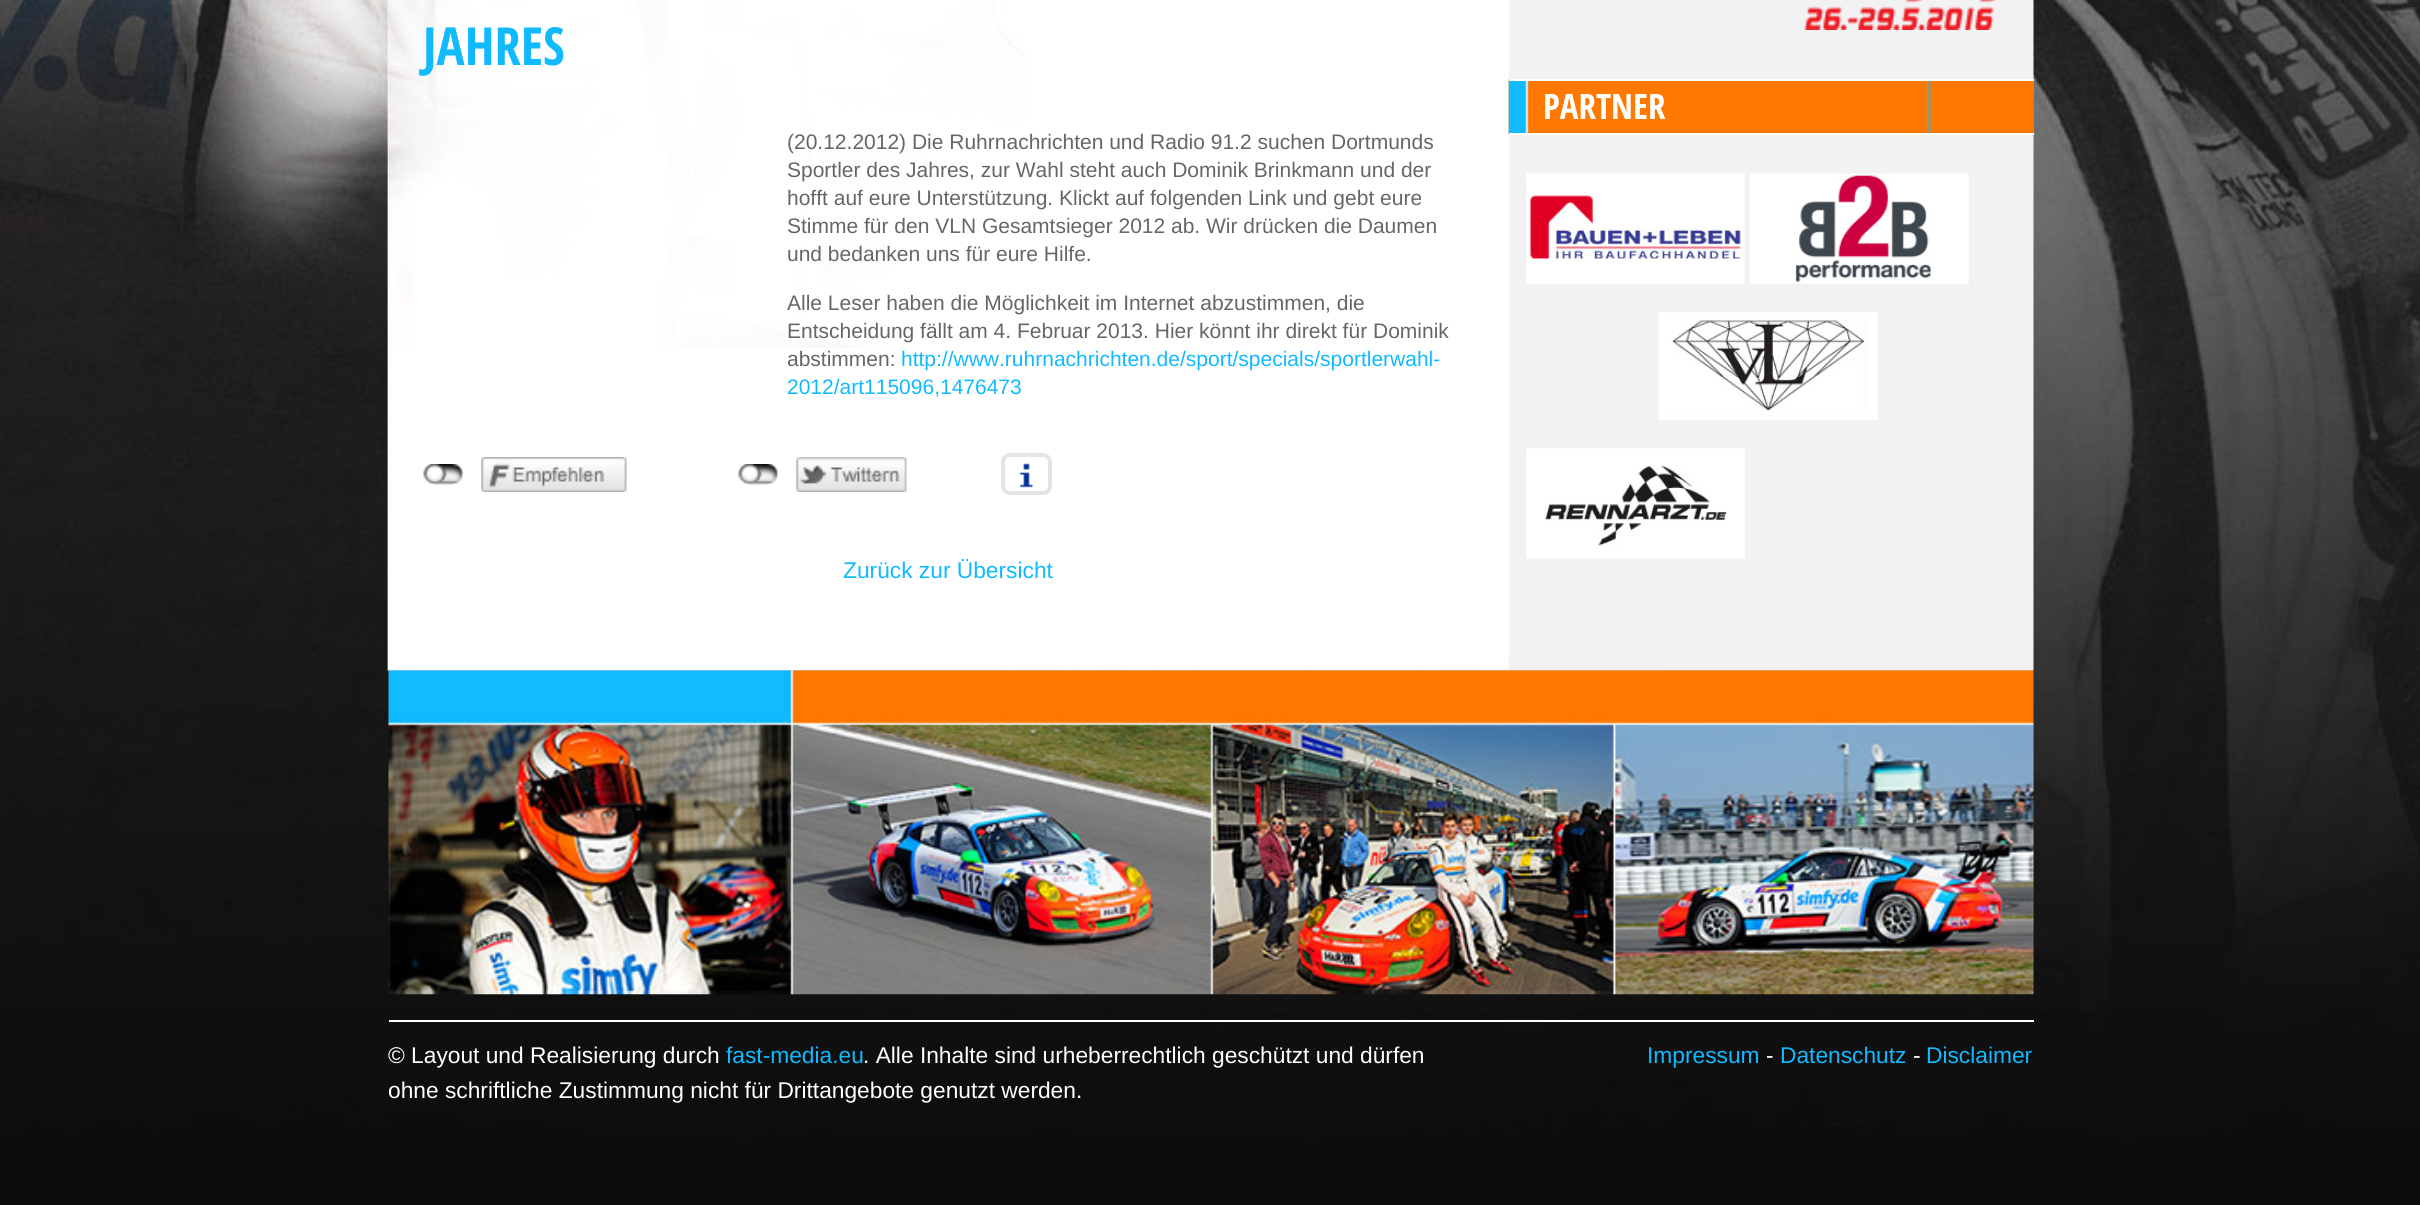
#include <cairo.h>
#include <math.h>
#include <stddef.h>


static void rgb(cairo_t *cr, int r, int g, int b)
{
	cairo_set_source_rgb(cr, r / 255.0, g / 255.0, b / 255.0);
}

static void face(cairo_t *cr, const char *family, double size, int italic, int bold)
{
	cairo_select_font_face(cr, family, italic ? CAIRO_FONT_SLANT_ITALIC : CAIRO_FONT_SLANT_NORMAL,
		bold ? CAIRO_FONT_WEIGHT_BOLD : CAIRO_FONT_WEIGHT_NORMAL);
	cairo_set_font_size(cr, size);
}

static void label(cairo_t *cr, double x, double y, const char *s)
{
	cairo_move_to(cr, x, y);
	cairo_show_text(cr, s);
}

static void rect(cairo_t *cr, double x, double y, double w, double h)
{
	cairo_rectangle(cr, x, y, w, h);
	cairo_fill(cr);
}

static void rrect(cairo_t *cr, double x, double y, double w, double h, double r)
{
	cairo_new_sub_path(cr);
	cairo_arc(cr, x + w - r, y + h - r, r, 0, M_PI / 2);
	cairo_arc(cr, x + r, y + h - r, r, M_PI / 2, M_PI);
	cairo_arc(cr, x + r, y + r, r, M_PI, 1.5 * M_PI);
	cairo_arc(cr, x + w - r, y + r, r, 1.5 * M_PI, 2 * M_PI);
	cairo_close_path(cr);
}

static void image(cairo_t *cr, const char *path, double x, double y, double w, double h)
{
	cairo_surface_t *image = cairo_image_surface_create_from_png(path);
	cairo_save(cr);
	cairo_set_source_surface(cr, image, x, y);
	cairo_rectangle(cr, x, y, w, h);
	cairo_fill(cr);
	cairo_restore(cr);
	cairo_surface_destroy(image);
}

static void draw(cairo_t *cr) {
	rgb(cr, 255, 255, 255);
	cairo_paint(cr);
	image(cr, "image0.png", 0, 0, 2420, 1205);
	image(cr, "image1.png", 388, 0, 1646, 671);
	rgb(cr, 255, 255, 255);
	rect(cr, 1508, 0, 1, 658);
	image(cr, "image2.png", 388, 0, 638, 348);
	face(cr, "Open Sans Condensed", 52.5, 0, 1);
	rgb(cr, 17, 186, 255);
	label(cr, 423, 65, "JAHRES");
	face(cr, "Liberation Sans", 21, 0, 0);
	rgb(cr, 102, 102, 102);
	label(cr, 787, 149, "(20.12.2012) Die Ruhrnachrichten und Radio 91.2 suchen Dortmunds");
	label(cr, 787, 177, "Sportler des Jahres, zur Wahl steht auch Dominik Brinkmann und der");
	label(cr, 787, 205, "hofft auf eure Unterstützung. Klickt auf folgenden Link und gebt eure");
	label(cr, 787, 233, "Stimme für den VLN Gesamtsieger 2012 ab. Wir drücken die Daumen");
	label(cr, 787, 261, "und bedanken uns für eure Hilfe.");
	label(cr, 787, 310, "Alle Leser haben die Möglichkeit im Internet abzustimmen, die");
	label(cr, 787, 338, "Entscheidung fällt am 4. Februar 2013. Hier könnt ihr direkt für Dominik");
	label(cr, 787, 366, "abstimmen:");
	rgb(cr, 17, 186, 255);
	label(cr, 901, 366, "http://www.ruhrnachrichten.de/sport/specials/sportlerwahl-");
	label(cr, 787, 394, "2012/art115096,1476473");
	image(cr, "image3.png", 423, 464, 41, 21);
	image(cr, "image4.png", 481, 457, 146, 35);
	image(cr, "image5.png", 738, 464, 41, 21);
	image(cr, "image6.png", 796, 457, 111, 35);
	image(cr, "image7.png", 1019, 463, 14, 25);
	rrect(cr, 1003, 455, 47, 38, 7);
	rgb(cr, 231, 227, 227);
	cairo_set_line_width(cr, 4);
	cairo_stroke(cr);
	face(cr, "Liberation Sans", 22.75, 0, 0);
	rgb(cr, 17, 186, 255);
	label(cr, 843, 578, "Zurück zur Übersicht");
	image(cr, "image8.png", 1804, 0, 193, 30);
	rgb(cr, 254, 120, 0);
	rect(cr, 1930, 81, 104, 52);
	image(cr, "image9.png", 1508, 79, 423, 56);
	rgb(cr, 255, 255, 255);
	rect(cr, 1509, 79, 525, 2);
	rect(cr, 1509, 133, 525, 2);
	face(cr, "Open Sans Condensed", 35, 0, 1);
	label(cr, 1543, 119, "PARTNER");
	image(cr, "image10.png", 1526, 173, 219, 111);
	image(cr, "image11.png", 1750, 173, 219, 111);
	image(cr, "image12.png", 1659, 312, 219, 108);
	image(cr, "image13.png", 1526, 448, 219, 111);
	image(cr, "image14.png", 388, 670, 1646, 325);
	rect(cr, 389, 1020, 1645, 2);
	face(cr, "Liberation Sans", 22.75, 0, 0);
	label(cr, 388, 1063, "© Layout und Realisierung durch");
	rgb(cr, 17, 186, 255);
	label(cr, 726, 1063, "fast-media.eu");
	rgb(cr, 255, 255, 255);
	label(cr, 863, 1063, ". Alle Inhalte sind urheberrechtlich geschützt und dürfen");
	label(cr, 388, 1098, "ohne schriftliche Zustimmung nicht für Drittangebote genutzt werden.");
	rgb(cr, 17, 186, 255);
	label(cr, 1647, 1063, "Impressum");
	rgb(cr, 255, 255, 255);
	label(cr, 1766, 1063, "-");
	rgb(cr, 17, 186, 255);
	label(cr, 1780, 1063, "Datenschutz");
	rgb(cr, 255, 255, 255);
	label(cr, 1913, 1063, "-");
	rgb(cr, 17, 186, 255);
	label(cr, 1926, 1063, "Disclaimer");
}

int main(void) {
	cairo_surface_t *surface = cairo_image_surface_create(CAIRO_FORMAT_RGB24, 2420, 1205);
	cairo_t *cr = cairo_create(surface);
	cairo_font_options_t *options = cairo_font_options_create();
	cairo_font_options_set_hint_metrics(options, CAIRO_HINT_METRICS_OFF);
	cairo_font_options_set_hint_style(options, CAIRO_HINT_STYLE_NONE);
	cairo_set_font_options(cr, options);
	cairo_set_miter_limit(cr, 4);
	draw(cr);
	cairo_surface_write_to_png(surface, "render.png");
	cairo_font_options_destroy(options);
	cairo_destroy(cr);
	cairo_surface_destroy(surface);
	return 0;
}
